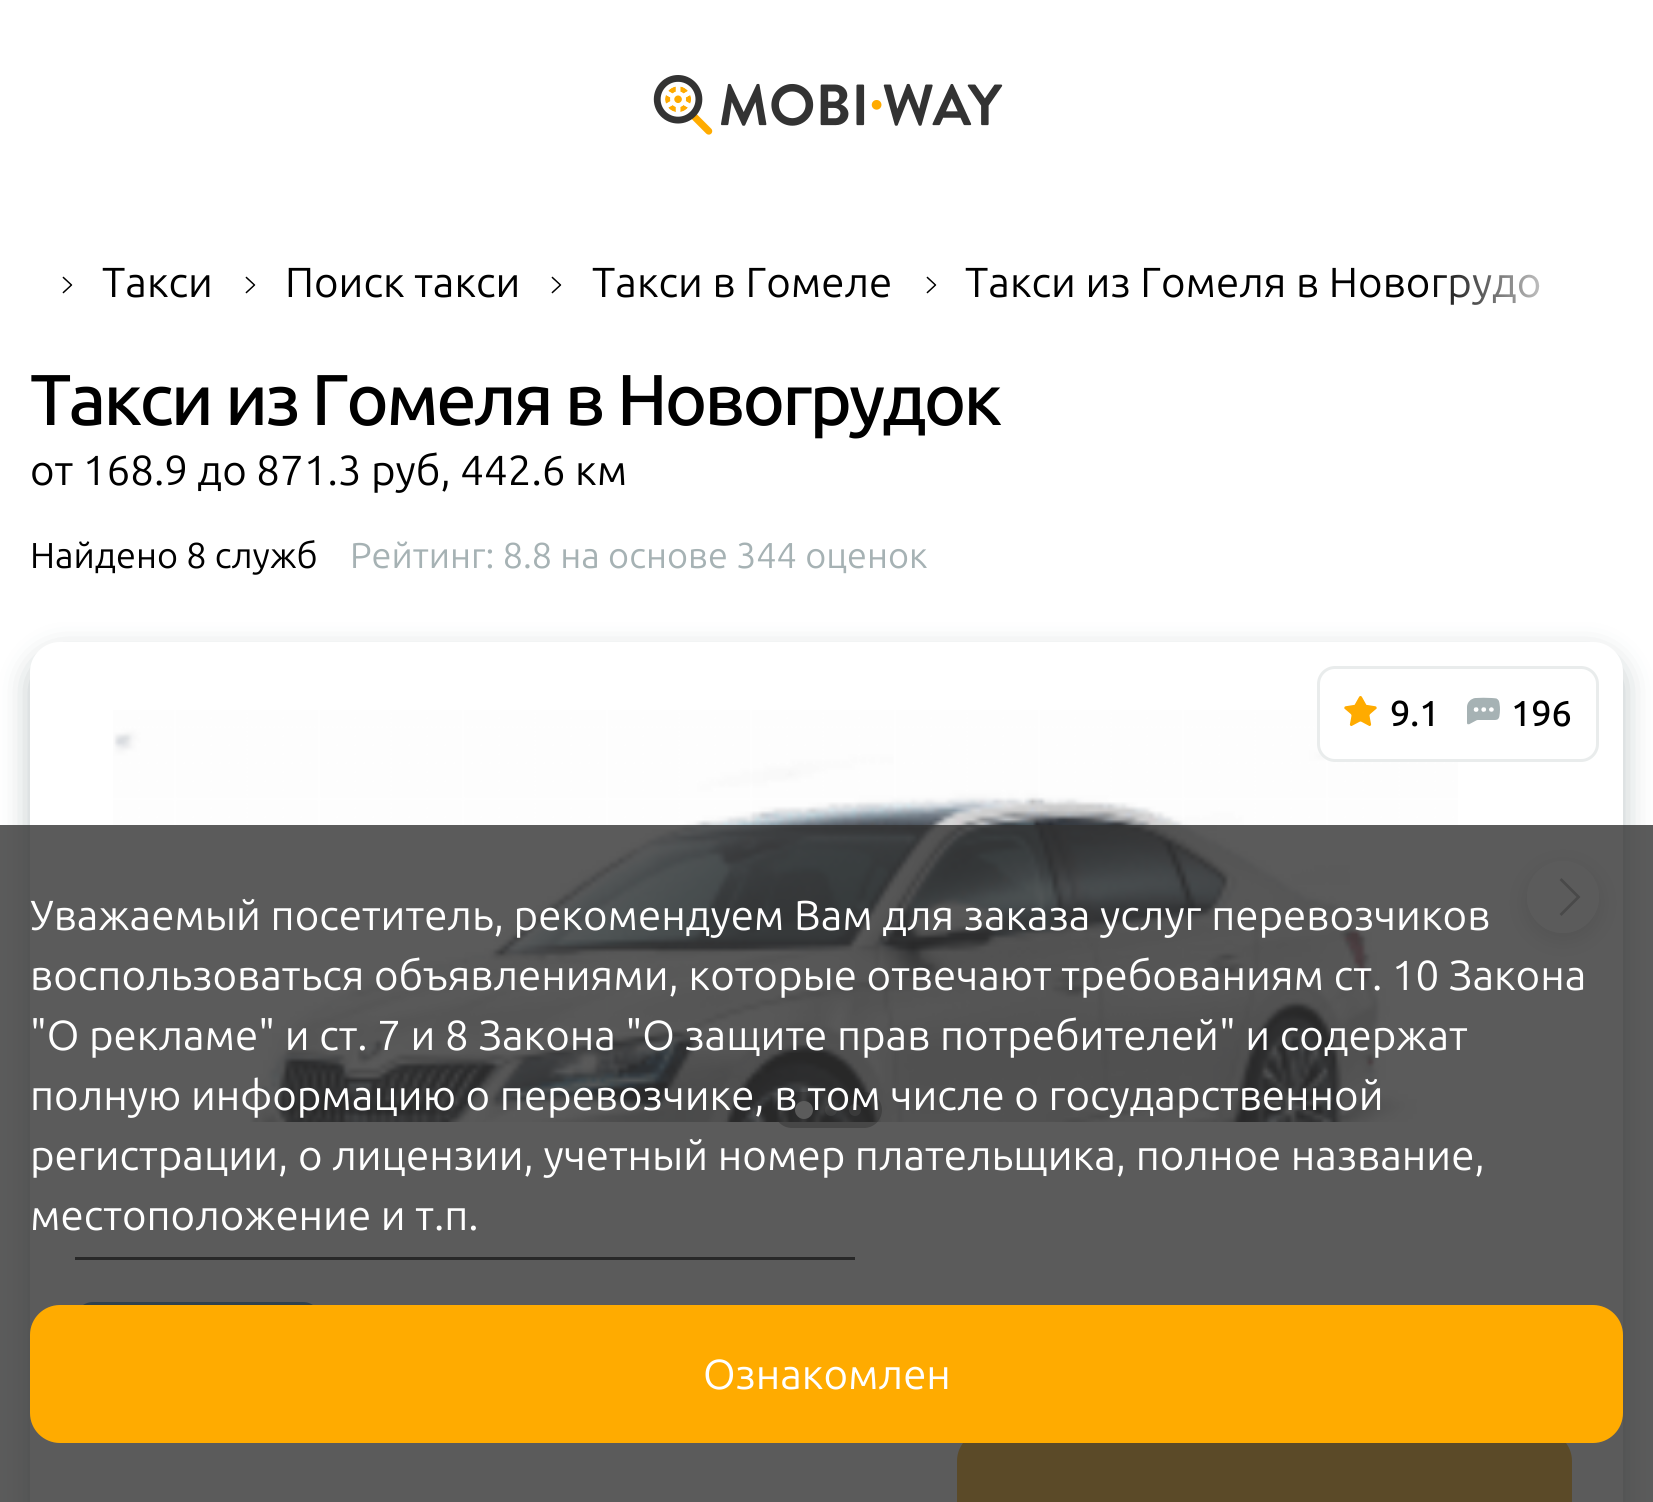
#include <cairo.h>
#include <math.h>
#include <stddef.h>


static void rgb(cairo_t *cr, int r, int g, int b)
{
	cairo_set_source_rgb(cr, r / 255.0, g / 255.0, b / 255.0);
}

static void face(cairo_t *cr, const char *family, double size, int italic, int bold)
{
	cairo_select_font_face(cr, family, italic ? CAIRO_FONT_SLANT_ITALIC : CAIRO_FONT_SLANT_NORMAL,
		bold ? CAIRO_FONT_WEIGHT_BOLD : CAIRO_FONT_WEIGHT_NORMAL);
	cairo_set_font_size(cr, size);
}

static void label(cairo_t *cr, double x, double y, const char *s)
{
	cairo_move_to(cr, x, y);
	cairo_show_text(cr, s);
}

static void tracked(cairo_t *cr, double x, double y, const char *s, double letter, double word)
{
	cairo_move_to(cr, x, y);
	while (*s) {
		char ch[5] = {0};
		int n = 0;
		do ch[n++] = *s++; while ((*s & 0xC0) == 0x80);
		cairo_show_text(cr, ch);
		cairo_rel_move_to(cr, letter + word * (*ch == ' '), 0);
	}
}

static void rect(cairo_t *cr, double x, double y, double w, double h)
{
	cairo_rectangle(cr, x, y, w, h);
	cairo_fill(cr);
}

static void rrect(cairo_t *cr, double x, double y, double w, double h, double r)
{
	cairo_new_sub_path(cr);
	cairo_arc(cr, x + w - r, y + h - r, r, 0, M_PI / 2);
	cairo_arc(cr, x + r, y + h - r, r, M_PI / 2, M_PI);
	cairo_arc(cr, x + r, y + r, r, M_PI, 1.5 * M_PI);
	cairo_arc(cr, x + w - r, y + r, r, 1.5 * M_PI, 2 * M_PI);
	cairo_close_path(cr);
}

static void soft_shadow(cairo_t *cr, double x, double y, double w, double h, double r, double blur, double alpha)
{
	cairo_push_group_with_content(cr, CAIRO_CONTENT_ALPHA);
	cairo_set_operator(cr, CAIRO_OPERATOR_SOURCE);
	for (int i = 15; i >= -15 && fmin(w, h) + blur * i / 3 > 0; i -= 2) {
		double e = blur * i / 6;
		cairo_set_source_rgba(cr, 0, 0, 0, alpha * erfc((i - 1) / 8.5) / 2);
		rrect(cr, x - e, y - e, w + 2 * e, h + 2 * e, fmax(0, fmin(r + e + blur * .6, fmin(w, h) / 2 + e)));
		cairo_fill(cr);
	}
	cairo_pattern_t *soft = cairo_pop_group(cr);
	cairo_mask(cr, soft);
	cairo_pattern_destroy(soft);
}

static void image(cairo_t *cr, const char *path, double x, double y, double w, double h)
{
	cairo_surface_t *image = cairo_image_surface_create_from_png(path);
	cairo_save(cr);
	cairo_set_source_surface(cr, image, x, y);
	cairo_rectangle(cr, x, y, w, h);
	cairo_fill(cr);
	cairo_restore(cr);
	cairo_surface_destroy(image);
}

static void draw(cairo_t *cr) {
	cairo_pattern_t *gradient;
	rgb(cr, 255, 255, 255);
	cairo_paint(cr);
	image(cr, "image0.png", 653, 75, 350, 60);
	image(cr, "image1.png", 62, 276, 11, 18);
	face(cr, "Ubuntu", 42, 0, 0);
	rgb(cr, 0, 0, 0);
	label(cr, 102, 297, "Такси");
	image(cr, "image2.png", 245, 276, 11, 18);
	label(cr, 285, 297, "Поиск такси");
	image(cr, "image1.png", 551, 276, 11, 18);
	label(cr, 592, 297, "Такси в Гомеле");
	image(cr, "image1.png", 926, 276, 11, 18);
	label(cr, 965, 297, "Такси из Гомеля в Новогрудо");
	gradient = cairo_pattern_create_linear(1578, 290, 1428, 290);
	cairo_pattern_add_color_stop_rgba(gradient, 0, 1, 1, 1, 1);
	cairo_pattern_add_color_stop_rgba(gradient, 1, 1, 1, 1, 0);
	cairo_set_source(cr, gradient);
	cairo_pattern_destroy(gradient);
	rect(cr, 1433, 274, 106, 31);
	face(cr, "Ubuntu Medium", 72, 0, 0);
	rgb(cr, 0, 0, 0);
	tracked(cr, 30, 425, "Такси из Гомеля в Новогрудок", -2.9, 0);
	face(cr, "Ubuntu", 42, 0, 0);
	label(cr, 30, 485, "от 168.9 до 871.3 руб, 442.6 км");
	face(cr, "Ubuntu", 36, 0, 0);
	label(cr, 30, 568, "Найдено 8 служб");
	rgb(cr, 166, 178, 180);
	label(cr, 350, 568, "Рейтинг: 8.8 на основе 344 оценок");
	rgb(cr, 33, 62, 68);
	soft_shadow(cr, 30, 654, 1593, 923, 30, 15, 0.3);
	rgb(cr, 255, 255, 255);
	rrect(cr, 30, 642, 1593, 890, 30);
	cairo_fill(cr);
	image(cr, "image5.png", 113, 710, 1345, 412);
	rrect(cr, 1318.5, 667.5, 279, 93, 16.5);
	cairo_fill_preserve(cr);
	rgb(cr, 233, 236, 236);
	cairo_set_line_width(cr, 3);
	cairo_stroke(cr);
	image(cr, "image3.png", 1344, 696, 33, 30);
	face(cr, "Ubuntu Medium", 36, 0, 0);
	rgb(cr, 0, 0, 0);
	label(cr, 1390, 726, "9.1");
	image(cr, "image4.png", 1467, 697, 33, 28);
	label(cr, 1511, 726, "196");
	cairo_save(cr);
	cairo_set_fill_rule(cr, CAIRO_FILL_RULE_EVEN_ODD);
	cairo_new_path(cr);
	cairo_move_to(cr, 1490, 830);
	cairo_line_to(cr, 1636, 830);
	cairo_line_to(cr, 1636, 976);
	cairo_line_to(cr, 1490, 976);
	cairo_close_path(cr);
	cairo_move_to(cr, 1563, 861);
	cairo_curve_to(cr, 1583, 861, 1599, 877, 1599, 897);
	cairo_curve_to(cr, 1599, 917, 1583, 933, 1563, 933);
	cairo_curve_to(cr, 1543, 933, 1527, 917, 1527, 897);
	cairo_curve_to(cr, 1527, 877, 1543, 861, 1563, 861);
	cairo_close_path(cr);
	cairo_clip(cr);
	rgb(cr, 0, 0, 0);
	soft_shadow(cr, 1527, 867, 72, 72, 36, 12, 0.15);
	cairo_restore(cr);
	cairo_set_source_rgba(cr, 1, 1, 1, 0.6);
	cairo_arc(cr, 1563, 897, 36, 0, 2 * M_PI);
	cairo_fill(cr);
	rgb(cr, 166, 166, 166);
	cairo_new_path(cr);
	cairo_move_to(cr, 1561.5, 878);
	cairo_line_to(cr, 1580.5, 897);
	cairo_line_to(cr, 1576.5, 897);
	cairo_line_to(cr, 1559.5, 880);
	cairo_close_path(cr);
	cairo_move_to(cr, 1580.5, 897);
	cairo_line_to(cr, 1561.5, 916);
	cairo_line_to(cr, 1559.5, 914);
	cairo_line_to(cr, 1576.5, 897);
	cairo_close_path(cr);
	cairo_fill(cr);
	cairo_set_source_rgba(cr, 0, 0, 0, 0.4);
	rrect(cr, 774, 1092, 108, 36, 18);
	cairo_fill(cr);
	rgb(cr, 255, 255, 255);
	cairo_arc(cr, 804, 1110, 9, 0, 2 * M_PI);
	cairo_fill(cr);
	cairo_set_source_rgba(cr, 1, 1, 1, 0.3);
	cairo_arc(cr, 831, 1110, 6, 0, 2 * M_PI);
	cairo_fill(cr);
	cairo_arc(cr, 855, 1110, 6, 0, 2 * M_PI);
	cairo_fill(cr);
	rgb(cr, 0, 0, 0);
	rect(cr, 75, 1257, 780, 3);
	rgb(cr, 42, 125, 187);
	rrect(cr, 75, 1302, 246, 72, 18);
	cairo_fill(cr);
	rgb(cr, 255, 171, 0);
	rrect(cr, 958.5, 1432.5, 612, 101, 28.5);
	cairo_fill_preserve(cr);
	cairo_stroke(cr);
	cairo_set_source_rgba(cr, 0.2, 0.2, 0.2, 0.8);
	rect(cr, 0, 825, 1653, 677);
	face(cr, "Ubuntu", 42, 0, 0);
	rgb(cr, 255, 255, 255);
	label(cr, 30, 930, "Уважаемый посетитель, рекомендуем Вам для заказа услуг перевозчиков");
	label(cr, 30, 990, "воспользоваться объявлениями, которые отвечают требованиям ст. 10 Закона");
	label(cr, 30, 1050, "\"О рекламе\" и ст. 7 и 8 Закона \"О защите прав потребителей\" и содержат");
	label(cr, 30, 1110, "полную информацию о перевозчике, в том числе о государственной");
	label(cr, 30, 1170, "регистрации, о лицензии, учетный номер плательщика, полное название,");
	label(cr, 30, 1230, "местоположение и т.п.");
	rgb(cr, 255, 171, 0);
	rrect(cr, 31.5, 1306.5, 1590, 135, 28.5);
	cairo_fill_preserve(cr);
	cairo_stroke(cr);
	rgb(cr, 255, 255, 255);
	label(cr, 703, 1389, "Ознакомлен");
}

int main(void) {
	cairo_surface_t *surface = cairo_image_surface_create(CAIRO_FORMAT_RGB24, 1653, 1502);
	cairo_t *cr = cairo_create(surface);
	cairo_font_options_t *options = cairo_font_options_create();
	cairo_font_options_set_hint_metrics(options, CAIRO_HINT_METRICS_OFF);
	cairo_font_options_set_hint_style(options, CAIRO_HINT_STYLE_NONE);
	cairo_set_font_options(cr, options);
	cairo_set_miter_limit(cr, 4);
	draw(cr);
	cairo_surface_write_to_png(surface, "render.png");
	cairo_font_options_destroy(options);
	cairo_destroy(cr);
	cairo_surface_destroy(surface);
	return 0;
}
